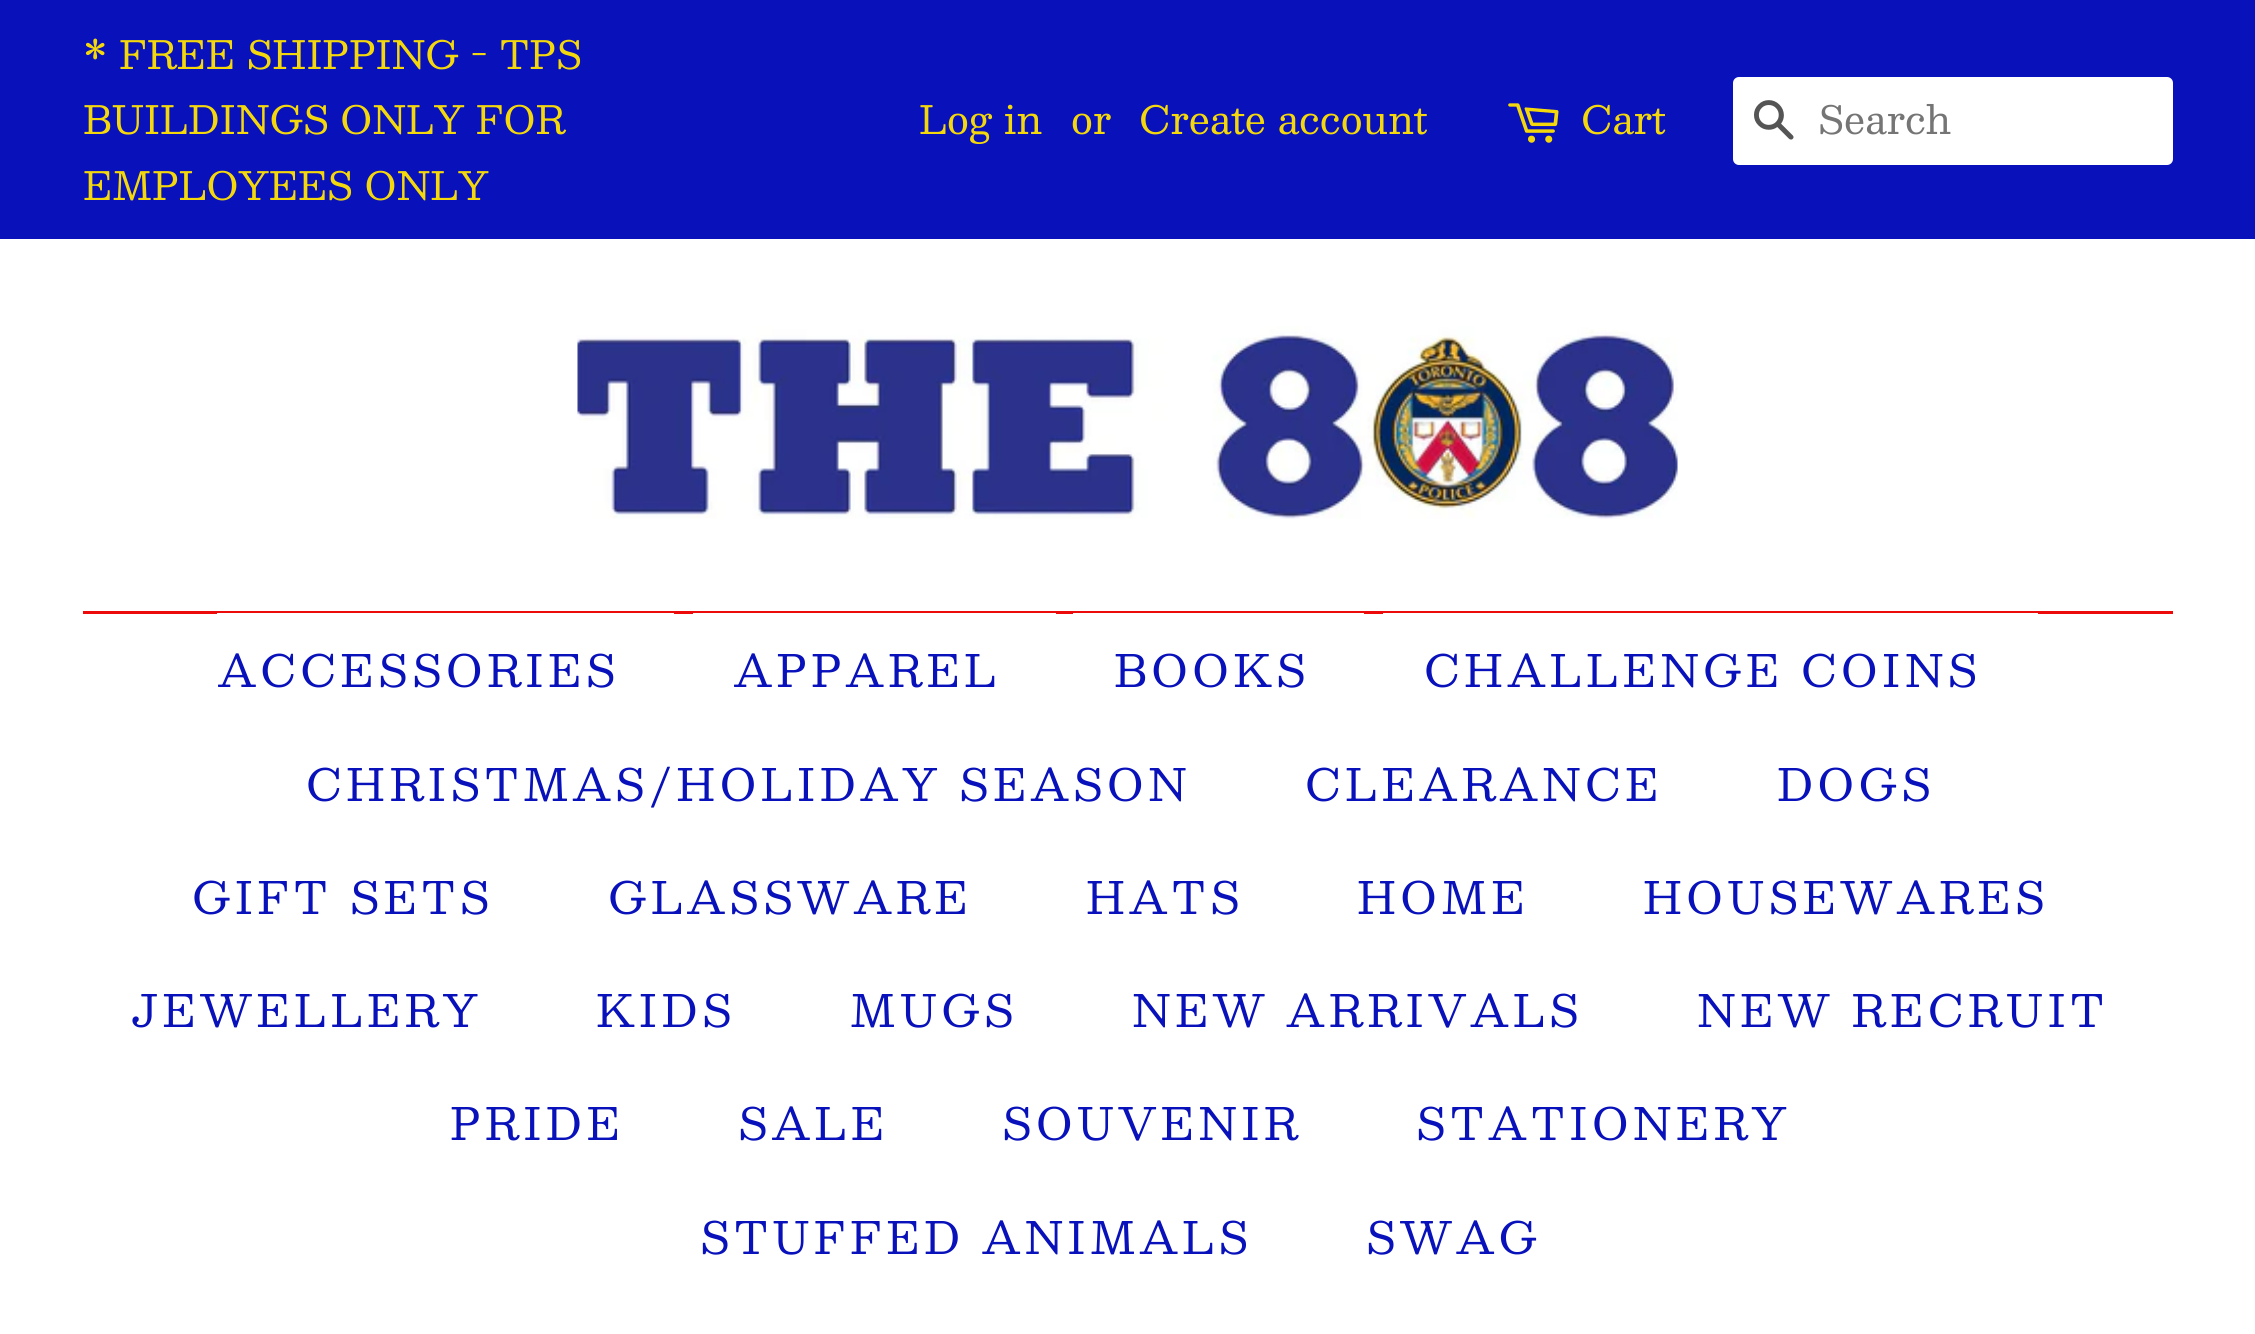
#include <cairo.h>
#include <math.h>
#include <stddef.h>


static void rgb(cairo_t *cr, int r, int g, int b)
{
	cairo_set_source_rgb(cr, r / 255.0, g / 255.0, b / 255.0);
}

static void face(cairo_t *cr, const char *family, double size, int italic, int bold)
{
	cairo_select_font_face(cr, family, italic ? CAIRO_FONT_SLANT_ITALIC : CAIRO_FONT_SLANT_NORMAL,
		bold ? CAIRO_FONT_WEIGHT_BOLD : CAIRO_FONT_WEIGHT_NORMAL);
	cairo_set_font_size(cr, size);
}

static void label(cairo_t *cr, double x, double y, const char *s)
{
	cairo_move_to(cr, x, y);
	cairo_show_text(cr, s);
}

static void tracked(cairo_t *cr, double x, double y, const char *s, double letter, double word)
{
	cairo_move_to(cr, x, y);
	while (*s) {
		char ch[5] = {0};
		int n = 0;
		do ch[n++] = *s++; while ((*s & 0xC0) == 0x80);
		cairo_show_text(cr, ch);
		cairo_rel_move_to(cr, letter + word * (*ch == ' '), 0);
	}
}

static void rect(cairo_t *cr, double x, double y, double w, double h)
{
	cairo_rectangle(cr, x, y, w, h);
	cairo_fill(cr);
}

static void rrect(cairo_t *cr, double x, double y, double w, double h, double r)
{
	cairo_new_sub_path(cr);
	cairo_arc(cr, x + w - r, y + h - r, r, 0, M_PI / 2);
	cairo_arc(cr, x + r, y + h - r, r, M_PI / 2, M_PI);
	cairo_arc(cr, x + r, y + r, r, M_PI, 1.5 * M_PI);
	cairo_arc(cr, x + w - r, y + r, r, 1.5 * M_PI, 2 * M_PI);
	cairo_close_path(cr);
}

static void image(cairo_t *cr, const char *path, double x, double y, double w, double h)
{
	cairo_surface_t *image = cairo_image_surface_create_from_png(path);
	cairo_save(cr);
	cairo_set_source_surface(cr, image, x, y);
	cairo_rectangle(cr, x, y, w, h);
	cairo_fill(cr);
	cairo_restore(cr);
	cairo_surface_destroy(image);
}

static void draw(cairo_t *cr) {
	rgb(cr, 255, 255, 255);
	cairo_paint(cr);
	rgb(cr, 8, 17, 186);
	rect(cr, 0, 0, 2255, 239);
	face(cr, "Besley", 38.5, 0, 0);
	rgb(cr, 244, 216, 12);
	label(cr, 83, 69, "* FREE SHIPPING - TPS");
	label(cr, 83, 134, "BUILDINGS ONLY FOR");
	label(cr, 83, 200, "EMPLOYEES ONLY");
	label(cr, 919, 134, "Log in");
	label(cr, 1071, 134, "or");
	label(cr, 1139, 134, "Create account");
	image(cr, "image0.png", 1508, 103, 51, 40);
	label(cr, 1581, 134, "Cart");
	rgb(cr, 255, 255, 255);
	rrect(cr, 1733, 77, 440, 88, 6);
	cairo_fill(cr);
	image(cr, "image1.png", 1754, 100, 40, 40);
	rgb(cr, 117, 117, 117);
	label(cr, 1818, 134, "Search");
	image(cr, "image2.png", 577, 326, 1101, 193);
	rgb(cr, 237, 10, 10);
	rect(cr, 83, 611, 2090, 3);
	rgb(cr, 255, 255, 255);
	rect(cr, 217, 613, 457, 1);
	face(cr, "Besley", 44, 0, 0);
	rgb(cr, 8, 17, 186);
	tracked(cr, 218, 687, "ACCESSORIES", 4.4, 0);
	rgb(cr, 255, 255, 255);
	rect(cr, 693, 613, 363, 1);
	rgb(cr, 8, 17, 186);
	tracked(cr, 734, 687, "APPAREL", 4.4, 0);
	rgb(cr, 255, 255, 255);
	rect(cr, 1073, 613, 291, 1);
	rgb(cr, 8, 17, 186);
	tracked(cr, 1114, 687, "BOOKS", 4.4, 0);
	rgb(cr, 255, 255, 255);
	rect(cr, 1383, 613, 655, 1);
	rgb(cr, 8, 17, 186);
	tracked(cr, 1424, 687, "CHALLENGE COINS", 4.4, 0);
	tracked(cr, 306, 801, "CHRISTMAS/HOLIDAY SEASON", 4.4, 0);
	tracked(cr, 1305, 801, "CLEARANCE", 4.4, 0);
	tracked(cr, 1777, 801, "DOGS", 4.4, 0);
	tracked(cr, 192, 914, "GIFT SETS", 4.4, 0);
	tracked(cr, 608, 914, "GLASSWARE", 4.4, 0);
	tracked(cr, 1086, 914, "HATS", 4.4, 0);
	tracked(cr, 1357, 914, "HOME", 4.4, 0);
	tracked(cr, 1643, 914, "HOUSEWARES", 4.4, 0);
	tracked(cr, 132, 1027, "JEWELLERY", 4.4, 0);
	tracked(cr, 596, 1027, "KIDS", 4.4, 0);
	tracked(cr, 850, 1027, "MUGS", 4.4, 0);
	tracked(cr, 1132, 1027, "NEW ARRIVALS", 4.4, 0);
	tracked(cr, 1697, 1027, "NEW RECRUIT", 4.4, 0);
	tracked(cr, 450, 1140, "PRIDE", 4.4, 0);
	tracked(cr, 738, 1140, "SALE", 4.4, 0);
	tracked(cr, 1002, 1140, "SOUVENIR", 4.4, 0);
	tracked(cr, 1416, 1140, "STATIONERY", 4.4, 0);
	tracked(cr, 700, 1254, "STUFFED ANIMALS", 4.4, 0);
	tracked(cr, 1366, 1254, "SWAG", 4.4, 0);
}

int main(void) {
	cairo_surface_t *surface = cairo_image_surface_create(CAIRO_FORMAT_RGB24, 2255, 1334);
	cairo_t *cr = cairo_create(surface);
	cairo_font_options_t *options = cairo_font_options_create();
	cairo_font_options_set_hint_metrics(options, CAIRO_HINT_METRICS_OFF);
	cairo_font_options_set_hint_style(options, CAIRO_HINT_STYLE_NONE);
	cairo_set_font_options(cr, options);
	cairo_set_miter_limit(cr, 4);
	draw(cr);
	cairo_surface_write_to_png(surface, "render.png");
	cairo_font_options_destroy(options);
	cairo_destroy(cr);
	cairo_surface_destroy(surface);
	return 0;
}
